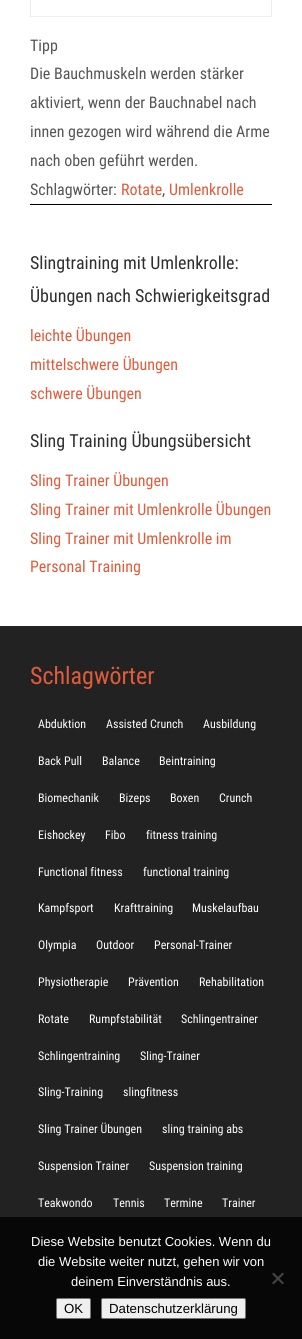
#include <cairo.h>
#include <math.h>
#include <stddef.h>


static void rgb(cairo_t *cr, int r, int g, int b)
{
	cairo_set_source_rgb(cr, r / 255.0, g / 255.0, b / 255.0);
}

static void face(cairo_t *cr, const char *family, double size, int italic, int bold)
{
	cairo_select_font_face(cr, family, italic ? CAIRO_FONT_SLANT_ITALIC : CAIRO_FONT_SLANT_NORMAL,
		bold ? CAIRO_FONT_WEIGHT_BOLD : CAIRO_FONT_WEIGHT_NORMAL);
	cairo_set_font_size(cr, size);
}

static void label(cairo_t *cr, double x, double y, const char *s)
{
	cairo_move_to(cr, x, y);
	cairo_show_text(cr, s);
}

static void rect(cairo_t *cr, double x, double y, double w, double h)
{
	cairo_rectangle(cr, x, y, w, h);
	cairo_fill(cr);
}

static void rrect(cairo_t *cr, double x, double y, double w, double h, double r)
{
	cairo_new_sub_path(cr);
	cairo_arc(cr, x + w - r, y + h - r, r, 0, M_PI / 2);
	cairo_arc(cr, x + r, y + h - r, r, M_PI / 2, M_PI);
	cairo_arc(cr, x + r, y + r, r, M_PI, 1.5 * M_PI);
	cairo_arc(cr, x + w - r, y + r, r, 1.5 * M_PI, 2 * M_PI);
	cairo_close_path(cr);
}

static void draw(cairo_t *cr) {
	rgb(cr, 255, 255, 255);
	cairo_paint(cr);
	rgb(cr, 0, 0, 0);
	rect(cr, 30, 204, 242, 1);
	rgb(cr, 238, 238, 238);
	rect(cr, 271, 0, 1, 17);
	rect(cr, 30, 16, 242, 1);
	rect(cr, 30, 0, 1, 17);
	face(cr, "Roboto Condensed", 16, 0, 0);
	rgb(cr, 85, 85, 85);
	label(cr, 30, 51, "Tipp");
	label(cr, 30, 79, "Die Bauchmuskeln werden stärker");
	label(cr, 30, 108, "aktiviert, wenn der Bauchnabel nach");
	label(cr, 30, 137, "innen gezogen wird während die Arme");
	label(cr, 30, 166, "nach oben geführt werden.");
	label(cr, 30, 195, "Schlagwörter:");
	rgb(cr, 224, 91, 58);
	label(cr, 121, 195, "Rotate");
	rgb(cr, 85, 85, 85);
	label(cr, 162, 195, ",");
	rgb(cr, 224, 91, 58);
	label(cr, 169, 195, "Umlenkrolle");
	face(cr, "Roboto Condensed", 18, 0, 0);
	rgb(cr, 47, 47, 47);
	label(cr, 30, 269, "Slingtraining mit Umlenkrolle:");
	label(cr, 30, 302, "Übungen nach Schwierigkeitsgrad");
	face(cr, "Roboto Condensed", 16, 0, 0);
	rgb(cr, 224, 91, 58);
	label(cr, 30, 341, "leichte Übungen");
	label(cr, 30, 370, "mittelschwere Übungen");
	label(cr, 30, 399, "schwere Übungen");
	face(cr, "Roboto Condensed", 18, 0, 0);
	rgb(cr, 47, 47, 47);
	label(cr, 30, 447, "Sling Training Übungsübersicht");
	face(cr, "Roboto Condensed", 16, 0, 0);
	rgb(cr, 224, 91, 58);
	label(cr, 30, 486, "Sling Trainer Übungen");
	label(cr, 30, 515, "Sling Trainer mit Umlenkrolle Übungen");
	label(cr, 30, 544, "Sling Trainer mit Umlenkrolle im");
	label(cr, 30, 572, "Personal Training");
	rgb(cr, 34, 34, 34);
	rect(cr, 0, 626, 302, 713);
	face(cr, "Roboto Condensed", 24, 0, 0);
	rgb(cr, 224, 91, 58);
	label(cr, 30, 684, "Schlagwörter");
	face(cr, "Roboto Condensed", 12, 0, 0);
	rgb(cr, 255, 255, 255);
	label(cr, 38, 728, "Abduktion");
	label(cr, 106, 728, "Assisted Crunch");
	label(cr, 203, 728, "Ausbildung");
	label(cr, 38, 765, "Back Pull");
	label(cr, 102, 765, "Balance");
	label(cr, 159, 765, "Beintraining");
	label(cr, 38, 802, "Biomechanik");
	label(cr, 119, 802, "Bizeps");
	label(cr, 170, 802, "Boxen");
	label(cr, 219, 802, "Crunch");
	label(cr, 38, 839, "Eishockey");
	label(cr, 105, 839, "Fibo");
	label(cr, 146, 839, "fitness training");
	label(cr, 38, 876, "Functional fitness");
	label(cr, 143, 876, "functional training");
	label(cr, 38, 912, "Kampfsport");
	label(cr, 114, 912, "Krafttraining");
	label(cr, 192, 912, "Muskelaufbau");
	label(cr, 38, 949, "Olympia");
	label(cr, 96, 949, "Outdoor");
	label(cr, 154, 949, "Personal-Trainer");
	label(cr, 38, 986, "Physiotherapie");
	label(cr, 128, 986, "Prävention");
	label(cr, 199, 986, "Rehabilitation");
	label(cr, 38, 1023, "Rotate");
	label(cr, 89, 1023, "Rumpfstabilität");
	label(cr, 181, 1023, "Schlingentrainer");
	label(cr, 38, 1060, "Schlingentraining");
	label(cr, 140, 1060, "Sling-Trainer");
	label(cr, 38, 1096, "Sling-Training");
	label(cr, 123, 1096, "slingfitness");
	label(cr, 38, 1133, "Sling Trainer Übungen");
	label(cr, 162, 1133, "sling training abs");
	label(cr, 38, 1170, "Suspension Trainer");
	label(cr, 149, 1170, "Suspension training");
	label(cr, 38, 1207, "Teakwondo");
	label(cr, 113, 1207, "Tennis");
	label(cr, 164, 1207, "Termine");
	label(cr, 222, 1207, "Trainer");
	cairo_set_source_rgba(cr, 0, 0, 0, 0.8);
	rect(cr, 0, 1217, 302, 122);
	face(cr, "Liberation Sans", 13, 0, 0);
	rgb(cr, 255, 255, 255);
	label(cr, 31, 1246, "Diese Website benutzt Cookies. Wenn du");
	label(cr, 38, 1266, "die Website weiter nutzt, gehen wir von");
	label(cr, 71, 1286, "deinem Einverständnis aus.");
	rgb(cr, 67, 67, 67);
	cairo_new_path(cr);
	cairo_move_to(cr, 282.5, 1272.5);
	cairo_line_to(cr, 284, 1274);
	cairo_line_to(cr, 273.5, 1284.5);
	cairo_line_to(cr, 272, 1283);
	cairo_close_path(cr);
	cairo_fill(cr);
	cairo_new_path(cr);
	cairo_move_to(cr, 272, 1274);
	cairo_line_to(cr, 273.5, 1272.5);
	cairo_line_to(cr, 284, 1283);
	cairo_line_to(cr, 282.5, 1284.5);
	cairo_close_path(cr);
	cairo_fill(cr);
	rgb(cr, 239, 239, 239);
	rrect(cr, 56.5, 1298.5, 34, 20, 1.5);
	cairo_fill_preserve(cr);
	rgb(cr, 118, 118, 118);
	cairo_set_line_width(cr, 1);
	cairo_stroke(cr);
	face(cr, "Liberation Sans", 13.25, 0, 0);
	rgb(cr, 0, 0, 0);
	label(cr, 64, 1313, "OK");
	rgb(cr, 239, 239, 239);
	rrect(cr, 101.5, 1298.5, 144, 20, 1.5);
	cairo_fill_preserve(cr);
	rgb(cr, 118, 118, 118);
	cairo_stroke(cr);
	rgb(cr, 0, 0, 0);
	label(cr, 109, 1313, "Datenschutzerklärung");
}

int main(void) {
	cairo_surface_t *surface = cairo_image_surface_create(CAIRO_FORMAT_RGB24, 302, 1339);
	cairo_t *cr = cairo_create(surface);
	cairo_font_options_t *options = cairo_font_options_create();
	cairo_font_options_set_hint_metrics(options, CAIRO_HINT_METRICS_OFF);
	cairo_font_options_set_hint_style(options, CAIRO_HINT_STYLE_NONE);
	cairo_set_font_options(cr, options);
	cairo_set_miter_limit(cr, 4);
	draw(cr);
	cairo_surface_write_to_png(surface, "render.png");
	cairo_font_options_destroy(options);
	cairo_destroy(cr);
	cairo_surface_destroy(surface);
	return 0;
}
